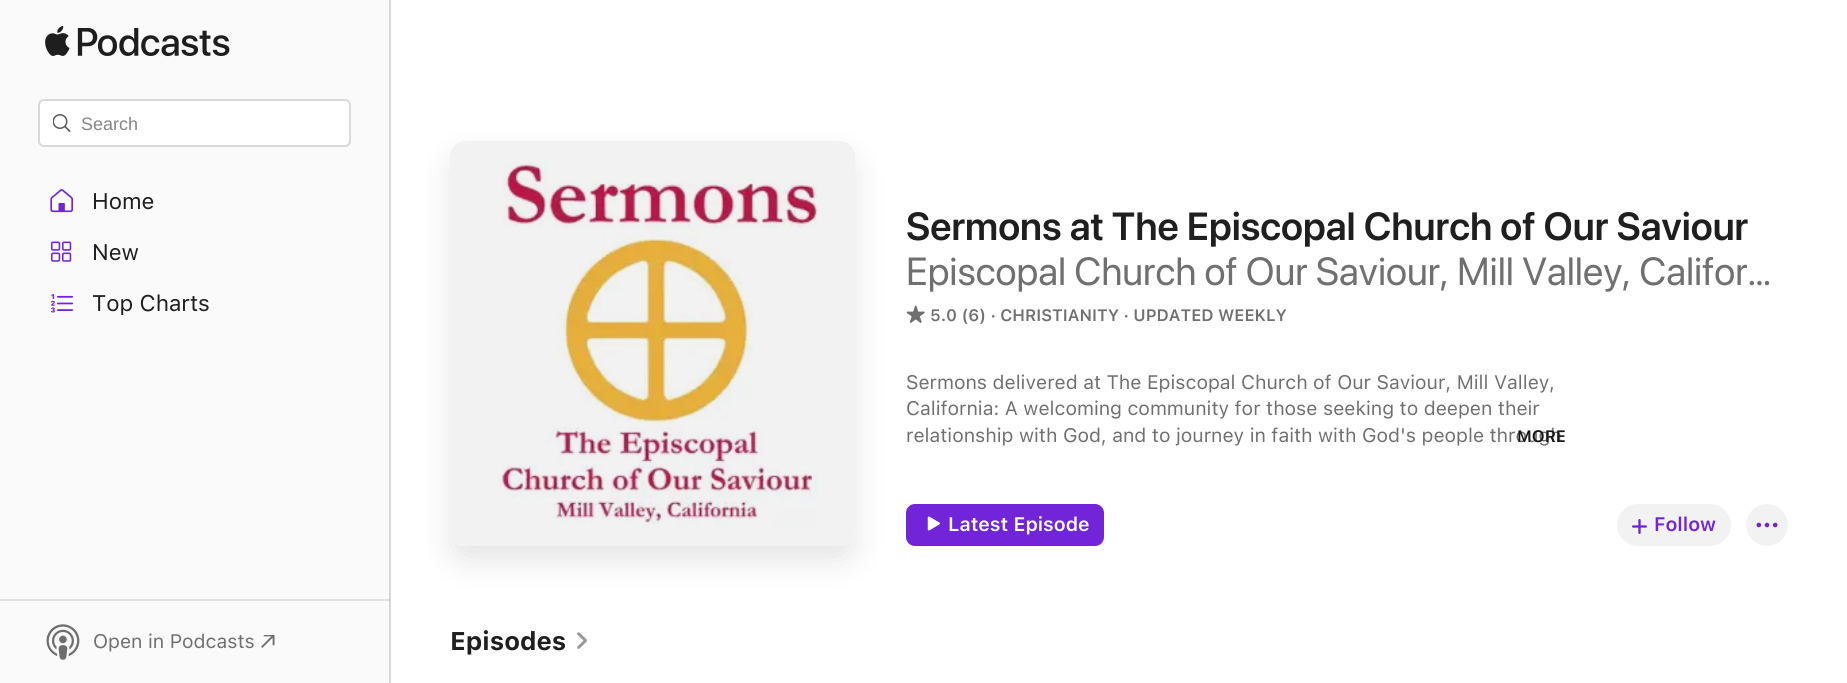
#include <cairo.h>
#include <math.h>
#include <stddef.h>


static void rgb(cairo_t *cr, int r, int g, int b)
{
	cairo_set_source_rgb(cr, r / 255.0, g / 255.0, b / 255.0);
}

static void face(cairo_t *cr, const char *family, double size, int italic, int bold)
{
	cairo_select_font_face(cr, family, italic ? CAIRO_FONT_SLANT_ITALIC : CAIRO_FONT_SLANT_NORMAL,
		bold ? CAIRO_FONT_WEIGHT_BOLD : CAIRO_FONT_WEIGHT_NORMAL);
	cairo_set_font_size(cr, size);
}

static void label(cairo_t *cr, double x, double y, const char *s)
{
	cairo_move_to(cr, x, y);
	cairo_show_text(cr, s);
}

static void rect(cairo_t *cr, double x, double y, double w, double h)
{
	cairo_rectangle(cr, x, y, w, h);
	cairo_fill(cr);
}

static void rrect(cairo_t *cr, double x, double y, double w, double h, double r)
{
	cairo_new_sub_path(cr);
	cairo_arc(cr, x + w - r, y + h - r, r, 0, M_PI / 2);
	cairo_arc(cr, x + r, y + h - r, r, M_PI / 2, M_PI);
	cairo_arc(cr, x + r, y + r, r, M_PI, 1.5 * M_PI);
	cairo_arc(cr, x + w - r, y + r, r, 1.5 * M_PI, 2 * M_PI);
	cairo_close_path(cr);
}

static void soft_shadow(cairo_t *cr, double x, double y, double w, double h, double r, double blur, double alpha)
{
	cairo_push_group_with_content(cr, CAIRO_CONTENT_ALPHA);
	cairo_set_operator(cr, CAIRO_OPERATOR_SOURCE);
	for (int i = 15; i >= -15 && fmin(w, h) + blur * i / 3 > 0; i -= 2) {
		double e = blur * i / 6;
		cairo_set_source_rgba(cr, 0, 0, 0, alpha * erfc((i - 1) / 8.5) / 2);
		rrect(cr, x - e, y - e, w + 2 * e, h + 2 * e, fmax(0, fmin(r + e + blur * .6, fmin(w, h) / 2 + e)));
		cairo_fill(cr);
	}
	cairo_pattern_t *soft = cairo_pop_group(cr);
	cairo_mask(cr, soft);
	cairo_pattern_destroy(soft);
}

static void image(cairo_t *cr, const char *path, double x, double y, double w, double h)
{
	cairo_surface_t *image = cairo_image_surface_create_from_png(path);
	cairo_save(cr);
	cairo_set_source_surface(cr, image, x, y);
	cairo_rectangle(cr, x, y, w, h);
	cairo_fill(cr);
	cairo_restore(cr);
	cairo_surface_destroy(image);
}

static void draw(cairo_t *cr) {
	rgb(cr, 255, 255, 255);
	cairo_paint(cr);
	rgb(cr, 217, 217, 217);
	rect(cr, 390, 0, 1, 683);
	rgb(cr, 250, 250, 250);
	rect(cr, 0, 0, 389, 683);
	rgb(cr, 225, 225, 225);
	rect(cr, 0, 599, 390, 2);
	rgb(cr, 213, 213, 213);
	rect(cr, 389, 0, 1, 683);
	rgb(cr, 192, 192, 192);
	rect(cr, 389, 599, 1, 2);
	image(cr, "image0.png", 45, 26, 185, 31);
	rgb(cr, 255, 255, 255);
	rrect(cr, 39, 100, 311, 46, 5);
	cairo_fill_preserve(cr);
	rgb(cr, 217, 217, 217);
	cairo_stroke(cr);
	image(cr, "image1.png", 53, 114, 18, 18);
	face(cr, "Liberation Sans", 18, 0, 0);
	rgb(cr, 133, 133, 133);
	label(cr, 81, 130, "Search");
	image(cr, "image2.png", 50, 189, 23, 24);
	face(cr, "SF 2", 22.5, 0, 0);
	rgb(cr, 31, 31, 31);
	label(cr, 92, 209, "Home");
	image(cr, "image3.png", 51, 241, 21, 21);
	label(cr, 92, 260, "New");
	image(cr, "image4.png", 51, 294, 23, 19);
	label(cr, 92, 311, "Top Charts");
	image(cr, "image5.png", 46, 624, 34, 36);
	face(cr, "SF 2", 19.5, 0, 0);
	rgb(cr, 112, 112, 112);
	label(cr, 93, 648, "Open in Podcasts");
	image(cr, "image6.png", 261, 635, 14, 13);
	cairo_save(cr);
	cairo_set_fill_rule(cr, CAIRO_FILL_RULE_EVEN_ODD);
	cairo_new_path(cr);
	cairo_move_to(cr, 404, 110);
	cairo_line_to(cr, 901, 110);
	cairo_line_to(cr, 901, 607);
	cairo_line_to(cr, 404, 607);
	cairo_close_path(cr);
	cairo_move_to(cr, 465, 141);
	cairo_line_to(cr, 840, 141);
	cairo_curve_to(cr, 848.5, 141, 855, 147.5, 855, 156);
	cairo_line_to(cr, 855, 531);
	cairo_curve_to(cr, 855, 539.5, 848.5, 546, 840, 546);
	cairo_line_to(cr, 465, 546);
	cairo_curve_to(cr, 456.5, 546, 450, 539.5, 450, 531);
	cairo_line_to(cr, 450, 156);
	cairo_curve_to(cr, 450, 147.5, 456.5, 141, 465, 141);
	cairo_close_path(cr);
	cairo_clip(cr);
	rgb(cr, 0, 0, 0);
	soft_shadow(cr, 450, 156, 405, 405, 15, 15, 0.1);
	cairo_restore(cr);
	image(cr, "image7.png", 499, 162, 319, 365);
	cairo_set_source_rgba(cr, 0.502, 0.502, 0.502, 0.1);
	cairo_new_path(cr);
	cairo_move_to(cr, 465, 141);
	cairo_line_to(cr, 840, 141);
	cairo_curve_to(cr, 848, 141, 855, 148, 855, 156);
	cairo_line_to(cr, 855, 531);
	cairo_curve_to(cr, 855, 539, 848, 546, 840, 546);
	cairo_line_to(cr, 465, 546);
	cairo_curve_to(cr, 457, 546, 450, 539, 450, 531);
	cairo_line_to(cr, 450, 156);
	cairo_curve_to(cr, 450, 148, 457, 141, 465, 141);
	cairo_close_path(cr);
	cairo_fill(cr);
	face(cr, "SF 2 SemiBold", 39, 0, 0);
	rgb(cr, 31, 31, 31);
	label(cr, 906, 240, "Sermons at The Episcopal Church of Our Saviour");
	face(cr, "SF", 39, 0, 0);
	rgb(cr, 112, 112, 112);
	label(cr, 906, 285, "Episcopal Church of Our Saviour, Mill Valley, Califor…");
	image(cr, "image8.png", 906, 305, 19, 18);
	face(cr, "SF SemiBold", 16.5, 0, 0);
	label(cr, 930, 321, "5.0 (6) · CHRISTIANITY · UPDATED WEEKLY");
	face(cr, "SF 2", 19.5, 0, 0);
	label(cr, 906, 389, "Sermons delivered at The Episcopal Church of Our Saviour, Mill Valley,");
	label(cr, 906, 415, "California: A welcoming community for those seeking to deepen their");
	label(cr, 906, 442, "relationship with God, and to journey in faith with God's people through");
	face(cr, "SF SemiBold", 16.5, 0, 0);
	rgb(cr, 25, 25, 25);
	label(cr, 1517, 442, "MORE");
	rgb(cr, 114, 36, 216);
	rrect(cr, 906, 504, 198, 42, 9);
	cairo_fill(cr);
	image(cr, "image9.png", 927, 516, 13, 15);
	face(cr, "SF SemiBold", 19.5, 0, 0);
	rgb(cr, 255, 255, 255);
	label(cr, 948, 531, "Latest Episode");
	rgb(cr, 242, 242, 242);
	rrect(cr, 1617, 504, 114, 42, 21);
	cairo_fill(cr);
	image(cr, "image10.png", 1632, 519, 15, 15);
	rgb(cr, 114, 36, 216);
	label(cr, 1654, 531, "Follow");
	image(cr, "image11.png", 1746, 504, 42, 42);
	face(cr, "SF", 25.5, 0, 1);
	rgb(cr, 31, 31, 31);
	label(cr, 450, 650, "Episodes");
	image(cr, "image12.png", 577, 632, 10, 17);
}

int main(void) {
	cairo_surface_t *surface = cairo_image_surface_create(CAIRO_FORMAT_RGB24, 1847, 683);
	cairo_t *cr = cairo_create(surface);
	cairo_font_options_t *options = cairo_font_options_create();
	cairo_font_options_set_hint_metrics(options, CAIRO_HINT_METRICS_OFF);
	cairo_font_options_set_hint_style(options, CAIRO_HINT_STYLE_NONE);
	cairo_set_font_options(cr, options);
	cairo_set_miter_limit(cr, 4);
	draw(cr);
	cairo_surface_write_to_png(surface, "render.png");
	cairo_font_options_destroy(options);
	cairo_destroy(cr);
	cairo_surface_destroy(surface);
	return 0;
}
